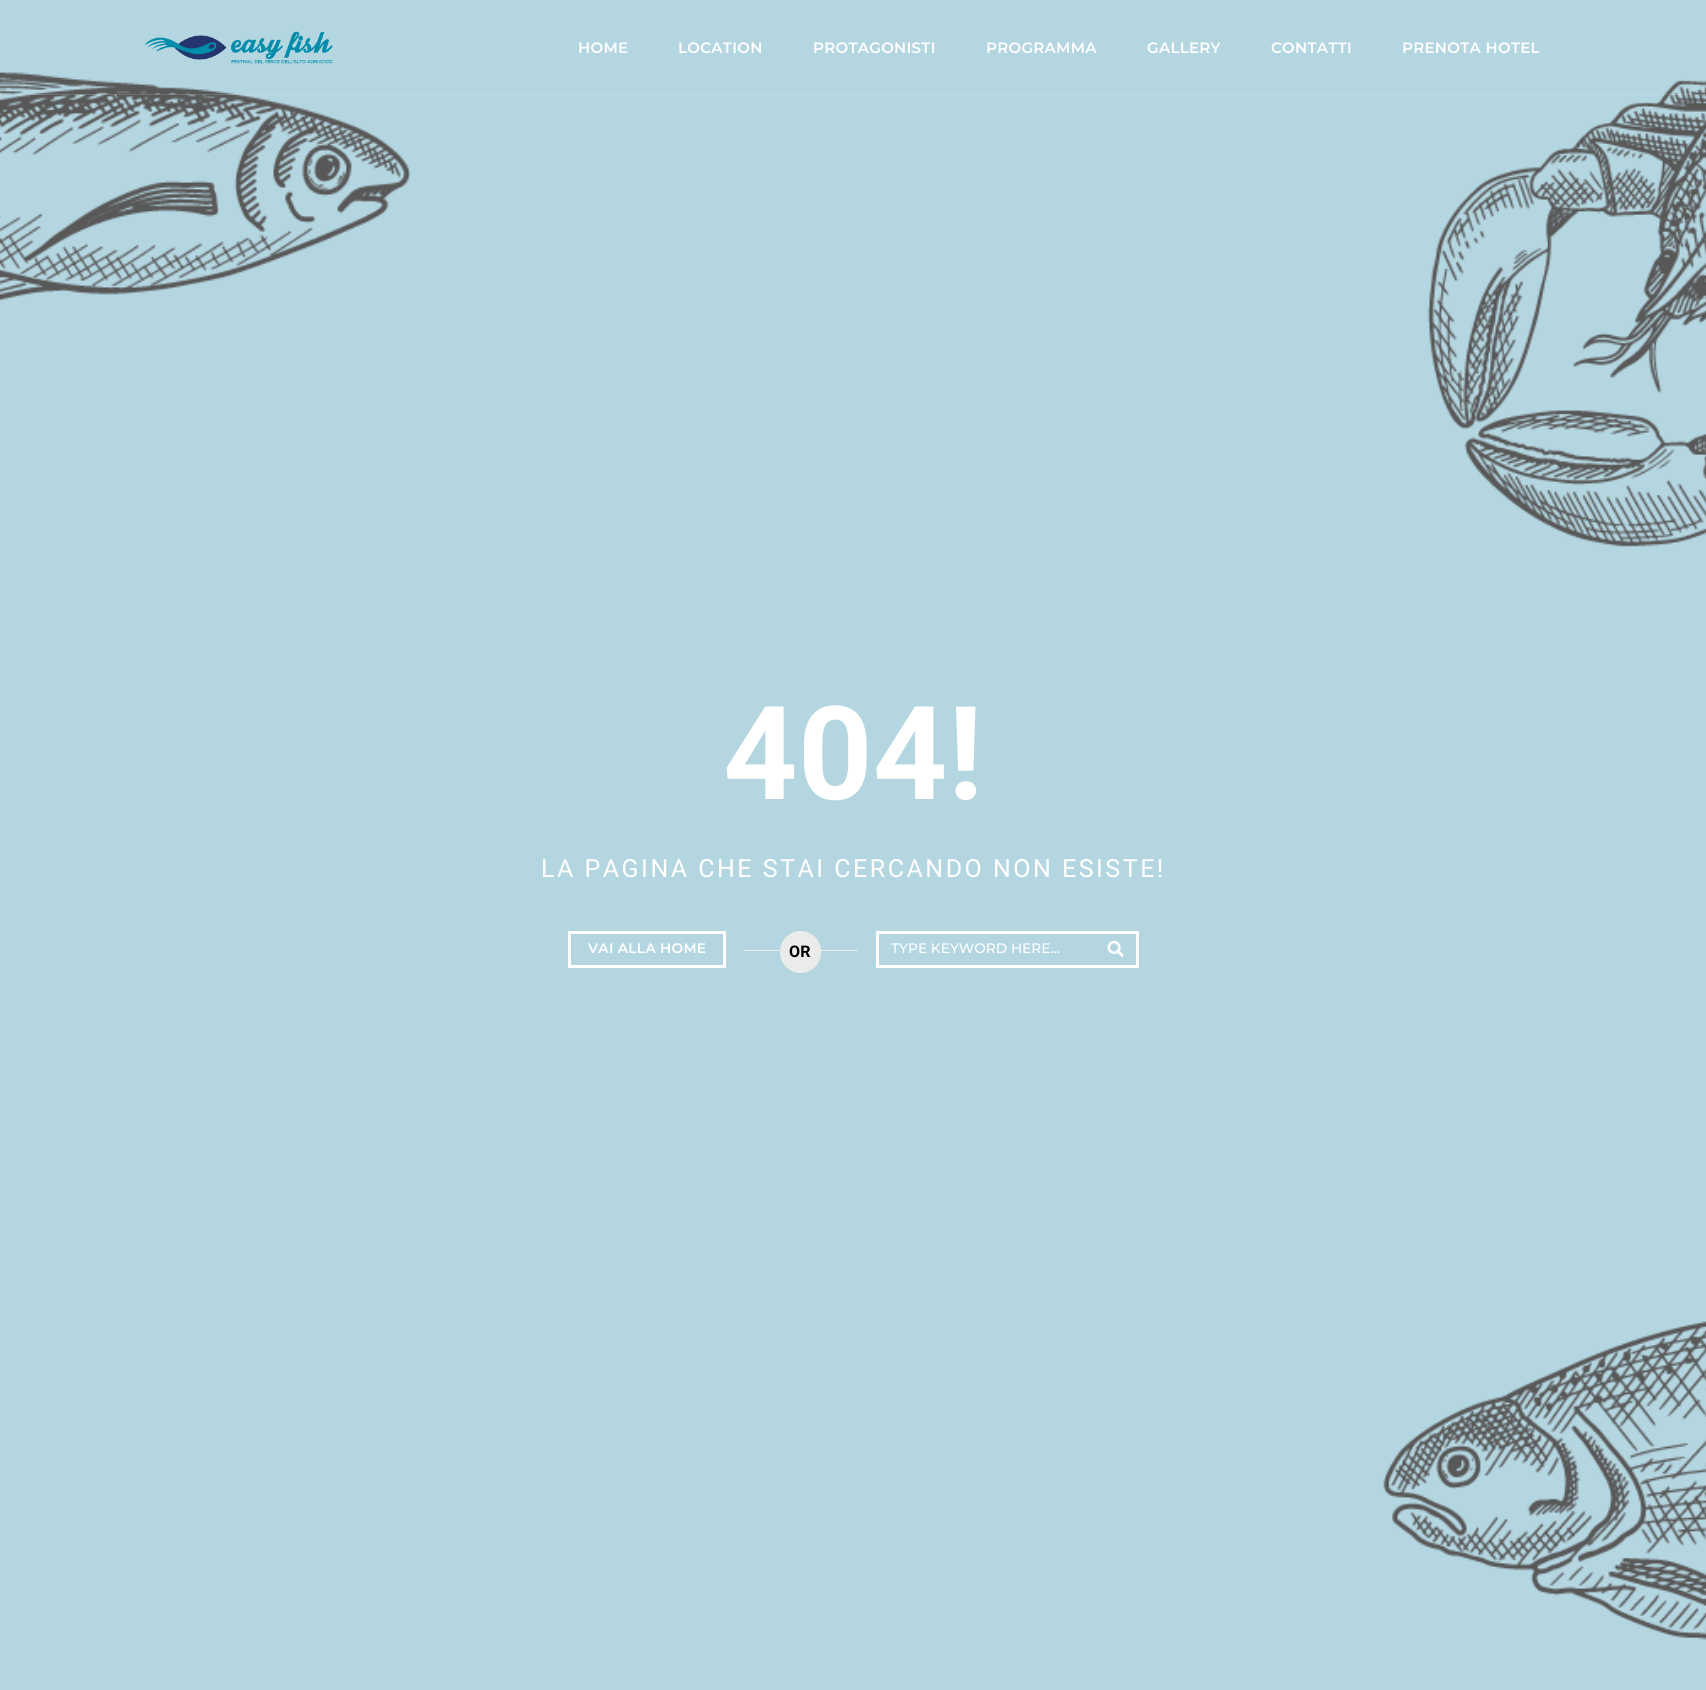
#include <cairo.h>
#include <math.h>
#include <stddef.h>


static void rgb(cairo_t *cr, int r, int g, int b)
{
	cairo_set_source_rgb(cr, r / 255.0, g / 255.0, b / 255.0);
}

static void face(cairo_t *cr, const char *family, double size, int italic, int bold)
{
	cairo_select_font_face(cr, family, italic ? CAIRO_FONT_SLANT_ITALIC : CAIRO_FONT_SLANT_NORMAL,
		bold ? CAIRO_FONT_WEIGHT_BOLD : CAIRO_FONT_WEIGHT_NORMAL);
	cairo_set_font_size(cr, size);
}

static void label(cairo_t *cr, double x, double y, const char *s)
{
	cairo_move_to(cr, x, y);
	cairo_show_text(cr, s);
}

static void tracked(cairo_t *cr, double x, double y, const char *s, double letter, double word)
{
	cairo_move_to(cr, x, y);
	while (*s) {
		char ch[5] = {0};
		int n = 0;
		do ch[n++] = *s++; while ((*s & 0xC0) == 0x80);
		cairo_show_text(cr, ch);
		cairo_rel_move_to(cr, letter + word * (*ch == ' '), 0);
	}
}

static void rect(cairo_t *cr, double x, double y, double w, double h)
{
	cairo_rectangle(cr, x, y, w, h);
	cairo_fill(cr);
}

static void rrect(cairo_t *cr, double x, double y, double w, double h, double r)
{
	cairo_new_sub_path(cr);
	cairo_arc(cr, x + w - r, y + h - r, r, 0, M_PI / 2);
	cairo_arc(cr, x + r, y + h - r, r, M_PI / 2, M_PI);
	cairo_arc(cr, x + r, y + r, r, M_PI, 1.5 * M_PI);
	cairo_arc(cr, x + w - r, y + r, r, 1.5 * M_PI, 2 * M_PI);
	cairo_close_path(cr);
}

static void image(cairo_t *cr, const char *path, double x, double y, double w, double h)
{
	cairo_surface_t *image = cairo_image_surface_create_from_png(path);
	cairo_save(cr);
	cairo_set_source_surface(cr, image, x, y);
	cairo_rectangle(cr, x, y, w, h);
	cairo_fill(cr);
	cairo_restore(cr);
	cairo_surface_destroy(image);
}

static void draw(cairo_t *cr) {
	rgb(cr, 255, 255, 255);
	cairo_paint(cr);
	image(cr, "image1.png", 0, 0, 1706, 1690);
	cairo_set_source_rgba(cr, 1, 1, 1, 0.15);
	rect(cr, 0, 94, 1706, 1);
	image(cr, "image0.png", 144, 31, 189, 33);
	face(cr, "Montserrat SemiBold", 15, 0, 0);
	rgb(cr, 255, 255, 255);
	tracked(cr, 578, 53, "HOME", 0.3, 0);
	tracked(cr, 678, 53, "LOCATION", 0.3, 0);
	tracked(cr, 813, 53, "PROTAGONISTI", 0.3, 0);
	tracked(cr, 986, 53, "PROGRAMMA", 0.3, 0);
	tracked(cr, 1147, 53, "GALLERY", 0.3, 0);
	tracked(cr, 1271, 53, "CONTATTI", 0.3, 0);
	tracked(cr, 1402, 53, "PRENOTA HOTEL", 0.3, 0);
	face(cr, "Roboto", 130, 0, 1);
	tracked(cr, 723, 799, "404!", 0.3, 0);
	face(cr, "Roboto", 25, 0, 0);
	tracked(cr, 541, 877, "LA PAGINA CHE STAI CERCANDO NON ESISTE!", 2.5, 0);
	cairo_rectangle(cr, 569.5, 932.5, 155, 34);
	cairo_set_line_width(cr, 3);
	cairo_stroke(cr);
	face(cr, "Montserrat SemiBold", 13.75, 0, 0);
	tracked(cr, 588, 953, "VAI ALLA HOME", 0.3, 0);
	rgb(cr, 235, 235, 235);
	rrect(cr, 780, 931, 41, 42, 20.5);
	cairo_fill(cr);
	rect(cr, 744, 950, 37, 1);
	face(cr, "Roboto", 16, 0, 1);
	rgb(cr, 0, 0, 0);
	tracked(cr, 789, 957, "OR", 0.3, 0);
	rgb(cr, 235, 235, 235);
	rect(cr, 820, 950, 38, 1);
	cairo_rectangle(cr, 877.5, 932.5, 260, 34);
	rgb(cr, 255, 255, 255);
	cairo_stroke(cr);
	face(cr, "Montserrat Medium", 13.75, 0, 0);
	label(cr, 891, 953, "TYPE KEYWORD HERE...");
	image(cr, "image2.png", 1107, 940, 17, 17);
}

int main(void) {
	cairo_surface_t *surface = cairo_image_surface_create(CAIRO_FORMAT_RGB24, 1706, 1690);
	cairo_t *cr = cairo_create(surface);
	cairo_font_options_t *options = cairo_font_options_create();
	cairo_font_options_set_hint_metrics(options, CAIRO_HINT_METRICS_OFF);
	cairo_font_options_set_hint_style(options, CAIRO_HINT_STYLE_NONE);
	cairo_set_font_options(cr, options);
	cairo_set_miter_limit(cr, 4);
	draw(cr);
	cairo_surface_write_to_png(surface, "render.png");
	cairo_font_options_destroy(options);
	cairo_destroy(cr);
	cairo_surface_destroy(surface);
	return 0;
}
